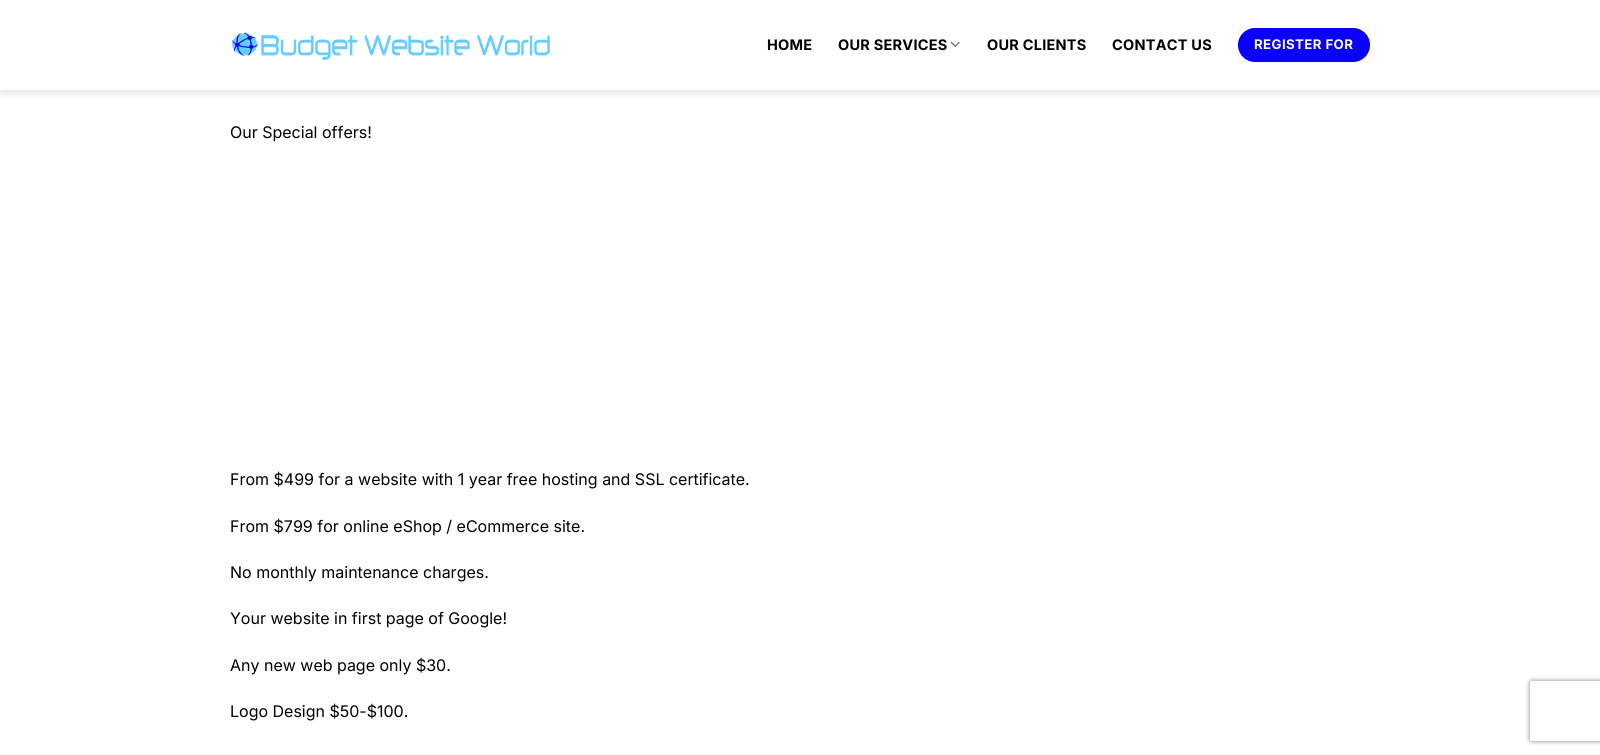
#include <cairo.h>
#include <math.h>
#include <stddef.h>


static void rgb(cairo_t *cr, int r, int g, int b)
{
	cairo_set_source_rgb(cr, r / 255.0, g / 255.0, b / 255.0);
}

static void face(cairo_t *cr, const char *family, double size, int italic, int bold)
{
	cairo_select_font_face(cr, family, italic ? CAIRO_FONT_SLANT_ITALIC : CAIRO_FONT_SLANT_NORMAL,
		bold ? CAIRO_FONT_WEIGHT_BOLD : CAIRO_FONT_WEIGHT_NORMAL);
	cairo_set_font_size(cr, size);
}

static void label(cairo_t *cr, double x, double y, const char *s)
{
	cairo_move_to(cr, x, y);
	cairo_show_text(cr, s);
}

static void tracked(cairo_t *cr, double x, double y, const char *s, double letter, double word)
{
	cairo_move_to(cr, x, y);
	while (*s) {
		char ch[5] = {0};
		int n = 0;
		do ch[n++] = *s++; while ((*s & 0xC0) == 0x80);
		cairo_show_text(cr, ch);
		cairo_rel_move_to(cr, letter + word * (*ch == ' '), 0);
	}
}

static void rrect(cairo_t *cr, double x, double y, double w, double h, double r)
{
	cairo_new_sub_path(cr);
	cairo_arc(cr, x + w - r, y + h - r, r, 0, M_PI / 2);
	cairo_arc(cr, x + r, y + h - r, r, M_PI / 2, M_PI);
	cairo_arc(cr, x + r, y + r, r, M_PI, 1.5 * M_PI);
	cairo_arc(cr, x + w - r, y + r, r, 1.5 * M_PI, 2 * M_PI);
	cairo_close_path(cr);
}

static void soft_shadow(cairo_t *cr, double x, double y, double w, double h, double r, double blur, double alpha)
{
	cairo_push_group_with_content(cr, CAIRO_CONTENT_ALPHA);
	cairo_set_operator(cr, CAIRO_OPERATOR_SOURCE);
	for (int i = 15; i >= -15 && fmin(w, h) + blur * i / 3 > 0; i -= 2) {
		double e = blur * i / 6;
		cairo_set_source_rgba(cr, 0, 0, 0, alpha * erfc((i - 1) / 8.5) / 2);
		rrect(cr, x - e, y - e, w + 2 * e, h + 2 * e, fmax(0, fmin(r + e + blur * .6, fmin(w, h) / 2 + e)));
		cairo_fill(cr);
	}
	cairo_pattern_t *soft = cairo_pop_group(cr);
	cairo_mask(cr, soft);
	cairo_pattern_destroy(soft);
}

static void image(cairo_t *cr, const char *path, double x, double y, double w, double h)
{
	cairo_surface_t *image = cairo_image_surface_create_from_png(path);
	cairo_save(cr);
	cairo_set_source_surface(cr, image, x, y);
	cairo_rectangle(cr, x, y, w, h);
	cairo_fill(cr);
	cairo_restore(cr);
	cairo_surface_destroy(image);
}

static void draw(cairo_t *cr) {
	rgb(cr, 255, 255, 255);
	cairo_paint(cr);
	cairo_save(cr);
	cairo_rectangle(cr, 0, 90, 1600, 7);
	cairo_clip(cr);
	rgb(cr, 0, 0, 0);
	soft_shadow(cr, 1, 1, 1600, 90, 0, 5, 0.15);
	cairo_restore(cr);
	image(cr, "image0.png", 232, 32, 318, 28);
	face(cr, "Inter", 14.5, 0, 1);
	rgb(cr, 0, 0, 0);
	tracked(cr, 767, 50, "HOME", 0.25, 0);
	tracked(cr, 838, 50, "OUR SERVICES", 0.25, 0);
	image(cr, "image1.png", 950, 41, 10, 6);
	tracked(cr, 987, 50, "OUR CLIENTS", 0.25, 0);
	tracked(cr, 1112, 50, "CONTACT US", 0.25, 0);
	rgb(cr, 10, 0, 255);
	rrect(cr, 1238, 28, 132, 34, 17);
	cairo_fill(cr);
	cairo_rectangle(cr, 1238.5, 28.5, 131, 33);
	cairo_set_source_rgba(cr, 0, 0, 0, 0.05);
	cairo_set_line_width(cr, 1);
	cairo_stroke(cr);
	face(cr, "Inter", 13.25, 0, 1);
	rgb(cr, 255, 255, 255);
	tracked(cr, 1254, 49, "REGISTER FOR", 0.4, 0);
	face(cr, "Inter", 16, 0, 0);
	rgb(cr, 0, 0, 0);
	label(cr, 230, 138, "Our Special offers!");
	label(cr, 230, 485, "From $499 for a website with 1 year free hosting and SSL certificate.");
	label(cr, 230, 532, "From $799 for online eShop / eCommerce site.");
	label(cr, 230, 578, "No monthly maintenance charges.");
	label(cr, 230, 624, "Your website in first page of Google!");
	label(cr, 230, 671, "Any new web page only $30.");
	label(cr, 230, 717, "Logo Design $50-$100.");
	cairo_save(cr);
	cairo_set_fill_rule(cr, CAIRO_FILL_RULE_EVEN_ODD);
	cairo_new_path(cr);
	cairo_move_to(cr, 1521, 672);
	cairo_line_to(cr, 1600, 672);
	cairo_line_to(cr, 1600, 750);
	cairo_line_to(cr, 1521, 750);
	cairo_close_path(cr);
	cairo_move_to(cr, 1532, 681);
	cairo_line_to(cr, 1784, 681);
	cairo_curve_to(cr, 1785, 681, 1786, 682, 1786, 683);
	cairo_line_to(cr, 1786, 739);
	cairo_curve_to(cr, 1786, 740, 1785, 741, 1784, 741);
	cairo_line_to(cr, 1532, 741);
	cairo_curve_to(cr, 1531, 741, 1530, 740, 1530, 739);
	cairo_line_to(cr, 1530, 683);
	cairo_curve_to(cr, 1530, 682, 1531, 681, 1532, 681);
	cairo_close_path(cr);
	cairo_clip(cr);
	rgb(cr, 128, 128, 128);
	soft_shadow(cr, 1530, 681, 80, 60, 2, 2.5, 1);
	cairo_restore(cr);
}

int main(void) {
	cairo_surface_t *surface = cairo_image_surface_create(CAIRO_FORMAT_RGB24, 1600, 755);
	cairo_t *cr = cairo_create(surface);
	cairo_font_options_t *options = cairo_font_options_create();
	cairo_font_options_set_hint_metrics(options, CAIRO_HINT_METRICS_OFF);
	cairo_font_options_set_hint_style(options, CAIRO_HINT_STYLE_NONE);
	cairo_set_font_options(cr, options);
	cairo_set_miter_limit(cr, 4);
	draw(cr);
	cairo_surface_write_to_png(surface, "render.png");
	cairo_font_options_destroy(options);
	cairo_destroy(cr);
	cairo_surface_destroy(surface);
	return 0;
}
